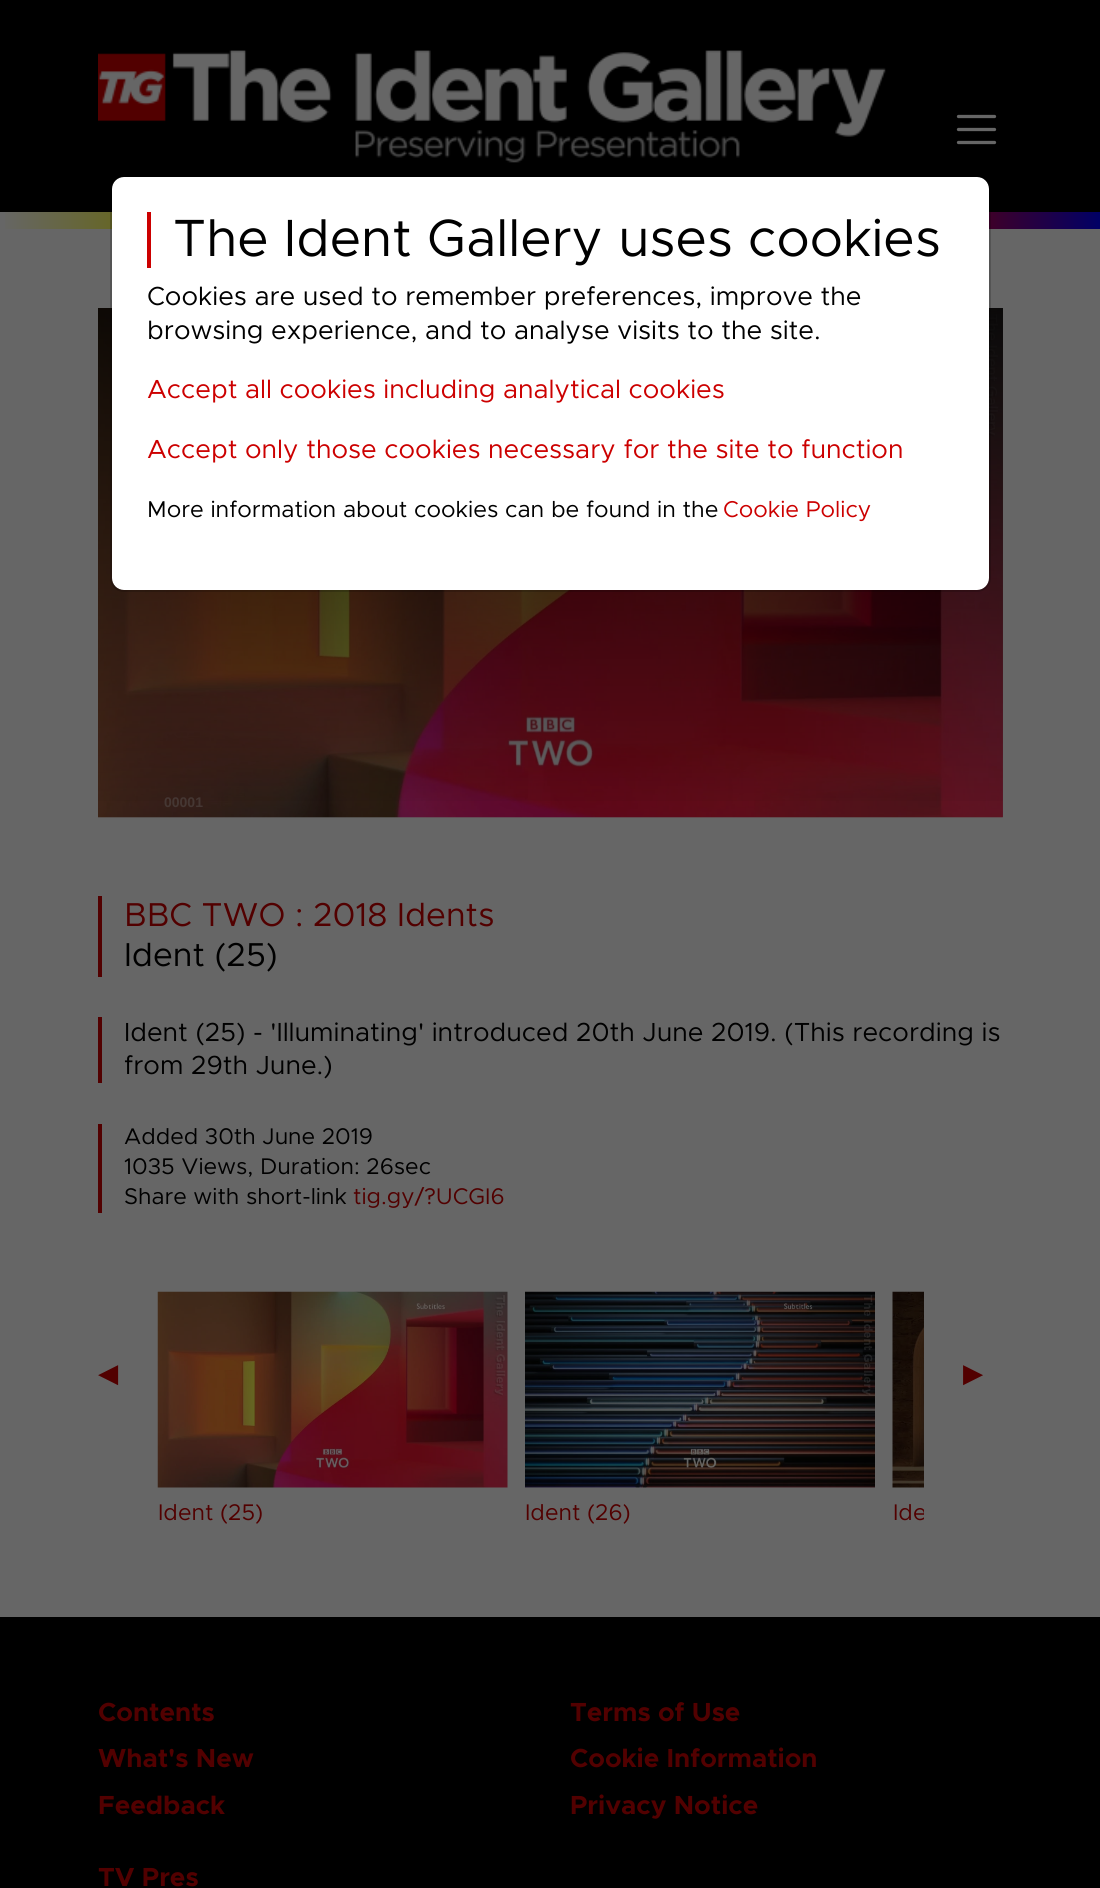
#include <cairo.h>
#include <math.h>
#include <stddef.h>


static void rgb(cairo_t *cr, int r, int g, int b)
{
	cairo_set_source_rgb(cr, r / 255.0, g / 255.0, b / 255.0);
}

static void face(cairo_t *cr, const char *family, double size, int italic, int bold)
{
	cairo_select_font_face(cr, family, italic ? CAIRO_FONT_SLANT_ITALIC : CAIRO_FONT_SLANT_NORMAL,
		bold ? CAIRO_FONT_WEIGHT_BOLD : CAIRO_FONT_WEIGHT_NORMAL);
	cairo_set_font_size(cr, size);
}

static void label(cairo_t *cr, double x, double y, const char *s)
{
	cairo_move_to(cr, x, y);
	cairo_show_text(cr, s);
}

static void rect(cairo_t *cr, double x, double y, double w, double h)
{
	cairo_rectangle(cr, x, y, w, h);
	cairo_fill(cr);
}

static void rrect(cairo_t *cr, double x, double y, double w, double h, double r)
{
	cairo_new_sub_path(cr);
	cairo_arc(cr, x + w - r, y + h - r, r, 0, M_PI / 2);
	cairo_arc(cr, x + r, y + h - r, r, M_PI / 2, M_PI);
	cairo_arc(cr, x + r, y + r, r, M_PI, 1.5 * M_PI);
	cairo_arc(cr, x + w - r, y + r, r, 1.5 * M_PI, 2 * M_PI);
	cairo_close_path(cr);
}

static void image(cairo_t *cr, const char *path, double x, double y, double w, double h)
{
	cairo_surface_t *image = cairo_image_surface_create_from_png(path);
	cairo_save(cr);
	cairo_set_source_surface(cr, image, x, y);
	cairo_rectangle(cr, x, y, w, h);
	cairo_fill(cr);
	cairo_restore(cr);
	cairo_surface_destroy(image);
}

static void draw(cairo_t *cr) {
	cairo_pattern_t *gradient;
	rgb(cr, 102, 102, 102);
	cairo_paint(cr);
	rgb(cr, 0, 0, 0);
	rect(cr, 0, 0, 1100, 212);
	image(cr, "image0.png", 98, 50, 788, 113);
	cairo_new_path(cr);
	cairo_move_to(cr, 958.5, 116.5);
	cairo_line_to(cr, 994.5, 116.5);
	cairo_move_to(cr, 958.5, 129.5);
	cairo_line_to(cr, 994.5, 129.5);
	cairo_move_to(cr, 958.5, 142.5);
	cairo_line_to(cr, 994.5, 142.5);
	rgb(cr, 102, 102, 102);
	cairo_set_line_width(cr, 3.3);
	cairo_set_line_cap(cr, CAIRO_LINE_CAP_ROUND);
	cairo_stroke(cr);
	gradient = cairo_pattern_create_linear(0, 221, 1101, 220);
	cairo_pattern_add_color_stop_rgba(gradient, 0, 0.4, 0.4, 0.4, 1);
	cairo_pattern_add_color_stop_rgba(gradient, 0.17, 0.4, 0.4, 0, 1);
	cairo_pattern_add_color_stop_rgba(gradient, 0.33, 0, 0.4, 0.4, 1);
	cairo_pattern_add_color_stop_rgba(gradient, 0.5, 0, 0.4, 0, 1);
	cairo_pattern_add_color_stop_rgba(gradient, 0.67, 0.4, 0, 0.4, 1);
	cairo_pattern_add_color_stop_rgba(gradient, 0.83, 0.4, 0, 0, 1);
	cairo_pattern_add_color_stop_rgba(gradient, 1, 0, 0, 0.4, 1);
	cairo_set_source(cr, gradient);
	cairo_pattern_destroy(gradient);
	rect(cr, 5, 212, 1095, 17);
	image(cr, "image1.png", 98, 308, 905, 510);
	image(cr, "image2.png", 98, 308, 905, 510);
	gradient = cairo_pattern_create_linear(550, 308, 550, 817);
	cairo_pattern_add_color_stop_rgba(gradient, 0, 0, 0, 0, 0.8);
	cairo_pattern_add_color_stop_rgba(gradient, 1, 0, 0, 0, 0);
	cairo_set_source(cr, gradient);
	cairo_pattern_destroy(gradient);
	rect(cr, 98, 308, 905, 493);
	rgb(cr, 255, 255, 255);
	rrect(cr, 112, 177, 877, 413, 12);
	cairo_fill(cr);
	rrect(cr, 111, 176, 879, 415, 13);
	cairo_set_source_rgba(cr, 0, 0, 0, 0.18);
	cairo_set_line_width(cr, 2);
	cairo_set_line_cap(cr, CAIRO_LINE_CAP_BUTT);
	cairo_stroke(cr);
	rgb(cr, 204, 0, 0);
	rect(cr, 147, 212, 4, 56);
	face(cr, "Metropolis", 52.6, 0, 0);
	rgb(cr, 0, 0, 0);
	label(cr, 173, 256, "The Ident Gallery uses cookies");
	face(cr, "Metropolis", 26.25, 0, 0);
	label(cr, 147, 305, "Cookies are used to remember preferences, improve the");
	label(cr, 147, 339, "browsing experience, and to analyse visits to the site.");
	rgb(cr, 204, 0, 0);
	label(cr, 147, 398, "Accept all cookies including analytical cookies");
	label(cr, 147, 458, "Accept only those cookies necessary for the site to function");
	face(cr, "Metropolis", 23, 0, 0);
	rgb(cr, 0, 0, 0);
	label(cr, 147, 517, "More information about cookies can be found in the");
	rgb(cr, 204, 0, 0);
	label(cr, 723, 517, "Cookie Policy");
	face(cr, "Liberation Sans", 14, 0, 1);
	rgb(cr, 69, 55, 51);
	label(cr, 164, 807, "00001");
	rgb(cr, 82, 0, 0);
	rect(cr, 98, 896, 4, 81);
	face(cr, "Metropolis", 33.25, 0, 0);
	label(cr, 124, 926, "BBC TWO : 2018 Idents");
	rgb(cr, 0, 0, 0);
	label(cr, 124, 966, "Ident (25)");
	rgb(cr, 82, 0, 0);
	rect(cr, 98, 1017, 4, 66);
	face(cr, "Metropolis", 26.25, 0, 0);
	rgb(cr, 0, 0, 0);
	label(cr, 124, 1041, "Ident (25) - 'Illuminating' introduced 20th June 2019. (This recording is");
	label(cr, 124, 1074, "from 29th June.)");
	rgb(cr, 82, 0, 0);
	rect(cr, 98, 1124, 4, 89);
	face(cr, "Metropolis", 22.75, 0, 0);
	rgb(cr, 0, 0, 0);
	label(cr, 124, 1144, "Added 30th June 2019");
	label(cr, 124, 1174, "1035 Views, Duration: 26sec");
	label(cr, 124, 1204, "Share with short-link");
	rgb(cr, 82, 0, 0);
	label(cr, 353, 1204, "tig.gy/?UCGI6");
	face(cr, "DejaVu Sans", 26.25, 0, 0);
	label(cr, 98, 1382, "◀");
	label(cr, 963, 1382, "▶");
	image(cr, "image3.png", 157, 1291, 351, 197);
	face(cr, "Metropolis", 22.75, 0, 0);
	label(cr, 158, 1520, "Ident (25)");
	image(cr, "image4.png", 525, 1291, 350, 197);
	label(cr, 525, 1520, "Ident (26)");
	image(cr, "image5.png", 892, 1291, 32, 197);
	cairo_save(cr);
	cairo_rectangle(cr, 158, 1292, 766, 238);
	cairo_clip(cr);
	label(cr, 893, 1520, "Ide");
	cairo_restore(cr);
	rgb(cr, 0, 0, 0);
	rect(cr, 0, 1617, 1100, 271);
	face(cr, "Metropolis", 26.25, 0, 1);
	rgb(cr, 82, 0, 0);
	label(cr, 98, 1721, "Contents");
	label(cr, 98, 1767, "What's New");
	label(cr, 98, 1814, "Feedback");
	label(cr, 570, 1721, "Terms of Use");
	label(cr, 570, 1767, "Cookie Information");
	label(cr, 570, 1814, "Privacy Notice");
	label(cr, 98, 1886, "TV Pres");
}

int main(void) {
	cairo_surface_t *surface = cairo_image_surface_create(CAIRO_FORMAT_RGB24, 1100, 1888);
	cairo_t *cr = cairo_create(surface);
	cairo_font_options_t *options = cairo_font_options_create();
	cairo_font_options_set_hint_metrics(options, CAIRO_HINT_METRICS_OFF);
	cairo_font_options_set_hint_style(options, CAIRO_HINT_STYLE_NONE);
	cairo_set_font_options(cr, options);
	cairo_set_miter_limit(cr, 4);
	draw(cr);
	cairo_surface_write_to_png(surface, "render.png");
	cairo_font_options_destroy(options);
	cairo_destroy(cr);
	cairo_surface_destroy(surface);
	return 0;
}
